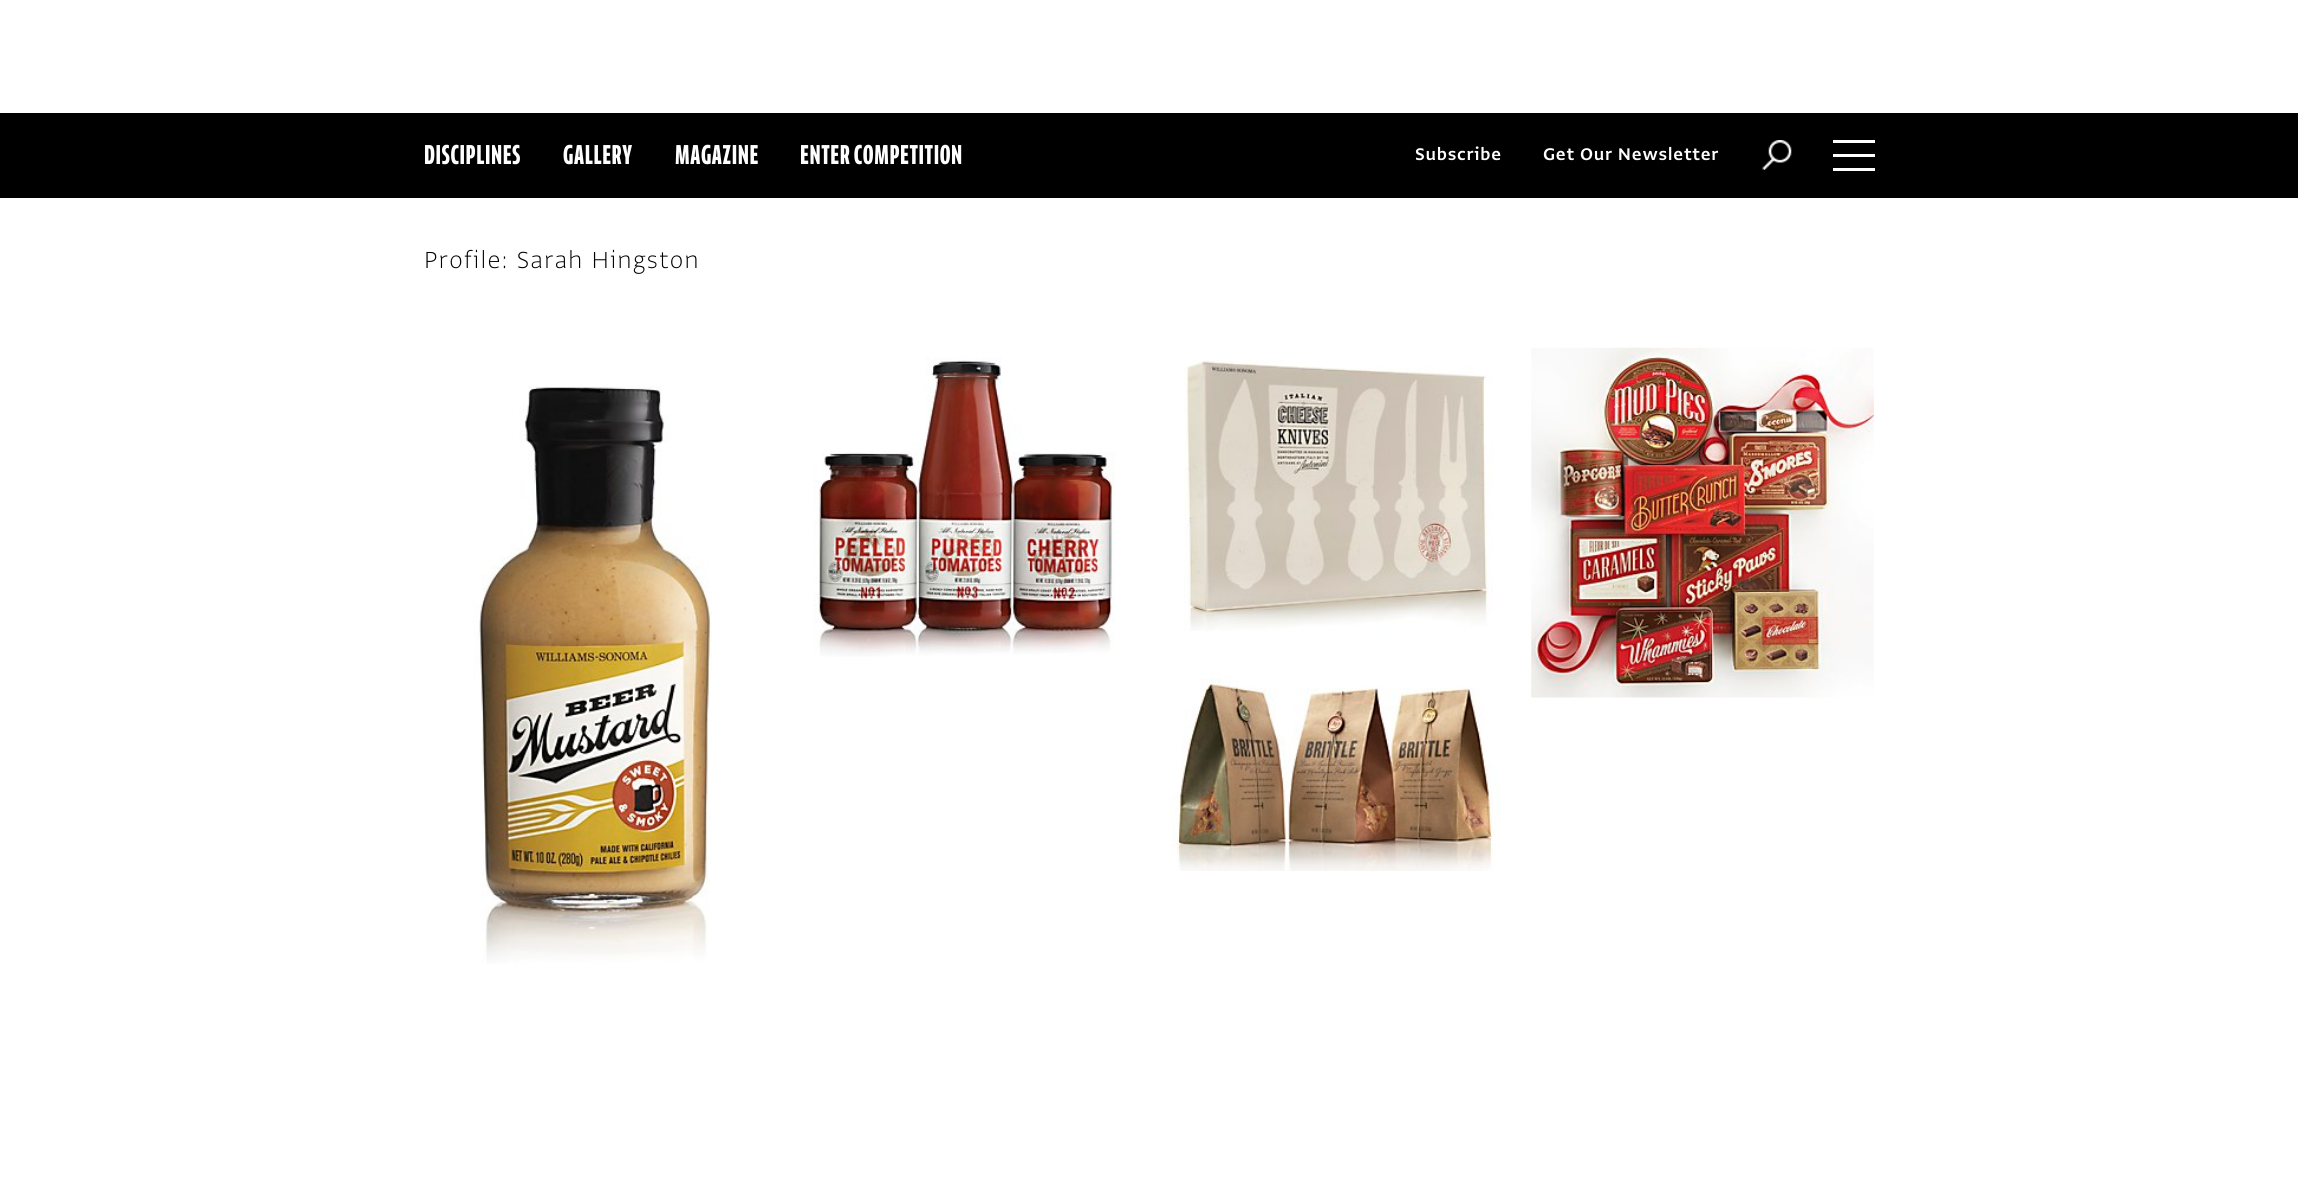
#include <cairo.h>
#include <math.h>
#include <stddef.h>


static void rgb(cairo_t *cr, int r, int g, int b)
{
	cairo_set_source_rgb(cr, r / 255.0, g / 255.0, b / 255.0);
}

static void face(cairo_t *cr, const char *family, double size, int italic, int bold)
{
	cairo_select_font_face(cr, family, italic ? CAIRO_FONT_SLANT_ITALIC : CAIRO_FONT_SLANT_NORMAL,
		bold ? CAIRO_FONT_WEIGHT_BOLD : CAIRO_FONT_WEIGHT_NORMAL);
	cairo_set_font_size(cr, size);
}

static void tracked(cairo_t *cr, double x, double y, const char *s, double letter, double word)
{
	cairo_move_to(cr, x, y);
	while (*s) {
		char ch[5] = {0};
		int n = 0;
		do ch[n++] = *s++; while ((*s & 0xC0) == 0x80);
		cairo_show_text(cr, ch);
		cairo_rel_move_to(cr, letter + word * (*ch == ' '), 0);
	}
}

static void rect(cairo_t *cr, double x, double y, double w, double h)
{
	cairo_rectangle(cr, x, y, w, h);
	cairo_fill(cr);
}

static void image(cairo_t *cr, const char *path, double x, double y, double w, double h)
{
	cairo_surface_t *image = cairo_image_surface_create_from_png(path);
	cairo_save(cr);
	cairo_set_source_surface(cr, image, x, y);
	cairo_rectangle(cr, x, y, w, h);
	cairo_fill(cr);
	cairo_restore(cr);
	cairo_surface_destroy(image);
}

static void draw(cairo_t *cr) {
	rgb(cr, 255, 255, 255);
	cairo_paint(cr);
	rgb(cr, 0, 0, 0);
	rect(cr, 0, 113, 2298, 85);
	face(cr, "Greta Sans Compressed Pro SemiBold", 32.5, 0, 0);
	rgb(cr, 255, 255, 255);
	tracked(cr, 424, 164, "DISCIPLINES", 0.6, 0);
	tracked(cr, 563, 164, "GALLERY", 0.6, 0);
	tracked(cr, 675, 164, "MAGAZINE", 0.6, 0);
	tracked(cr, 800, 164, "ENTER COMPETITION", 0.6, 0);
	face(cr, "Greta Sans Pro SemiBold", 20, 0, 0);
	tracked(cr, 1415, 160, "Subscribe", 0.75, 0);
	tracked(cr, 1543, 160, "Get Our Newsletter", 0.75, 0);
	image(cr, "image0.png", 1762, 140, 30, 30);
	rect(cr, 1833, 140, 42, 3);
	rect(cr, 1833, 154, 42, 3);
	rect(cr, 1833, 168, 42, 3);
	face(cr, "Greta Sans Pro ExtraLight", 27.5, 0, 0);
	rgb(cr, 0, 0, 0);
	tracked(cr, 424, 268, "Profile: Sarah Hingston", 1.4, 0);
	image(cr, "image1.png", 473, 385, 239, 579);
	image(cr, "image2.png", 813, 357, 302, 300);
	image(cr, "image3.png", 1184, 360, 309, 271);
	image(cr, "image4.png", 1531, 347, 343, 351);
	image(cr, "image5.png", 1170, 673, 330, 198);
}

int main(void) {
	cairo_surface_t *surface = cairo_image_surface_create(CAIRO_FORMAT_RGB24, 2298, 1201);
	cairo_t *cr = cairo_create(surface);
	cairo_font_options_t *options = cairo_font_options_create();
	cairo_font_options_set_hint_metrics(options, CAIRO_HINT_METRICS_OFF);
	cairo_font_options_set_hint_style(options, CAIRO_HINT_STYLE_NONE);
	cairo_set_font_options(cr, options);
	cairo_set_miter_limit(cr, 4);
	draw(cr);
	cairo_surface_write_to_png(surface, "render.png");
	cairo_font_options_destroy(options);
	cairo_destroy(cr);
	cairo_surface_destroy(surface);
	return 0;
}
